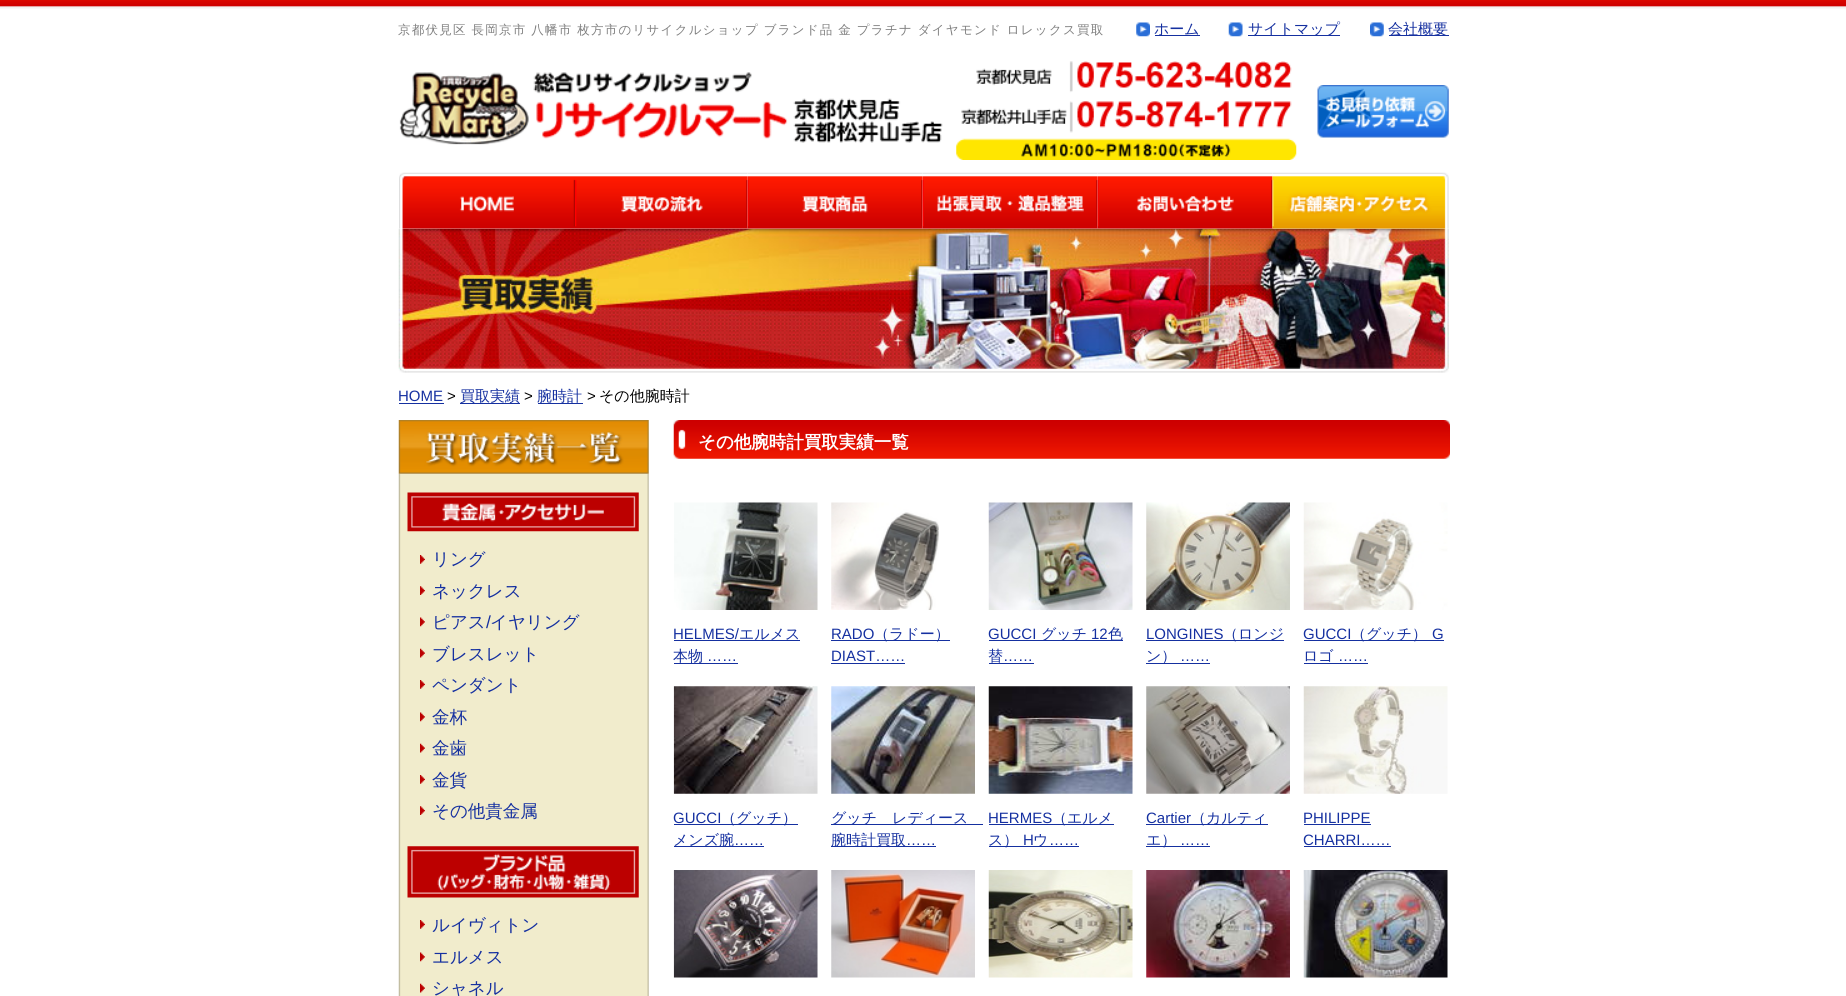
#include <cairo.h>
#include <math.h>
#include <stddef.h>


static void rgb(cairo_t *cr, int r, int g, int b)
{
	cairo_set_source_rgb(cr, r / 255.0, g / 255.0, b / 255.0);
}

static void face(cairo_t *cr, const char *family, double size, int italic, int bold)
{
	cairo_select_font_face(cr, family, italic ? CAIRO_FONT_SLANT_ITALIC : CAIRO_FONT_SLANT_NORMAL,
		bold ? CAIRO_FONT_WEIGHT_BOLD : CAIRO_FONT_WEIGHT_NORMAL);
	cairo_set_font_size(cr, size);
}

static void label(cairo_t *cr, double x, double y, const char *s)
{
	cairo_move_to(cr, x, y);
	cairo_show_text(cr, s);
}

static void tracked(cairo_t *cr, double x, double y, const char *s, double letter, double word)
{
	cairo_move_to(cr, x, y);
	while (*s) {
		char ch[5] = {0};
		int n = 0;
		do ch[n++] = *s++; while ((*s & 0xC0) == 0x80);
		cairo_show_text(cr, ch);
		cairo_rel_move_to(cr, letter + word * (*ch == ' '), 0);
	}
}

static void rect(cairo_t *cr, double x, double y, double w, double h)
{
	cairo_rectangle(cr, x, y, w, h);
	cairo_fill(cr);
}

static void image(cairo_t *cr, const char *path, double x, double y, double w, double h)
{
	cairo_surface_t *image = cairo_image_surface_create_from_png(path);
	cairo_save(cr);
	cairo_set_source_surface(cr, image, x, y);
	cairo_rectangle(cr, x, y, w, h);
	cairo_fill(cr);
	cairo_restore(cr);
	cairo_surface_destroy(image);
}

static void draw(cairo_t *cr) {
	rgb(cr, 255, 255, 255);
	cairo_paint(cr);
	image(cr, "image0.png", 0, 0, 1846, 9);
	face(cr, "WenQuanYi Zen Hei Medium", 12.5, 0, 0);
	rgb(cr, 127, 127, 127);
	tracked(cr, 398, 34, "京都伏見区 長岡京市 八幡市 枚方市のリサイクルショップ ブランド品 金 プラチナ ダイヤモンド ロレックス買取", 1.25, -0.25);
	image(cr, "image1.png", 1136, 22, 14, 15);
	rgb(cr, 21, 48, 160);
	rect(cr, 1155, 35, 45, 1);
	face(cr, "WenQuanYi Zen Hei Medium", 15, 0, 0);
	label(cr, 1154, 34, "ホーム");
	image(cr, "image2.png", 1228, 22, 15, 15);
	rect(cr, 1248, 35, 92, 1);
	label(cr, 1248, 34, "サイトマップ");
	image(cr, "image3.png", 1370, 22, 14, 15);
	rect(cr, 1389, 35, 60, 1);
	label(cr, 1388, 34, "会社概要");
	image(cr, "image4.png", 399, 72, 544, 73);
	image(cr, "image5.png", 956, 61, 341, 99);
	image(cr, "image6.png", 1317, 85, 132, 53);
	image(cr, "image13.png", 398, 228, 1051, 145);
	image(cr, "image7.png", 399, 172, 176, 57);
	image(cr, "image8.png", 575, 172, 173, 57);
	image(cr, "image9.png", 747, 172, 176, 57);
	image(cr, "image10.png", 922, 172, 176, 57);
	image(cr, "image11.png", 1097, 172, 176, 57);
	image(cr, "image12.png", 1272, 172, 177, 57);
	face(cr, "Liberation Sans", 15, 0, 0);
	label(cr, 398, 401, "HOME");
	rect(cr, 399, 403, 45, 1);
	rgb(cr, 0, 0, 0);
	label(cr, 447, 401, ">");
	rgb(cr, 21, 48, 160);
	rect(cr, 460, 403, 60, 1);
	face(cr, "WenQuanYi Zen Hei Medium", 15, 0, 0);
	label(cr, 460, 401, "買取実績");
	face(cr, "Liberation Sans", 15, 0, 0);
	rgb(cr, 0, 0, 0);
	label(cr, 524, 401, ">");
	rgb(cr, 21, 48, 160);
	rect(cr, 538, 403, 45, 1);
	face(cr, "WenQuanYi Zen Hei Medium", 15, 0, 0);
	label(cr, 537, 401, "腕時計");
	face(cr, "Liberation Sans", 15, 0, 0);
	rgb(cr, 0, 0, 0);
	label(cr, 587, 401, ">");
	face(cr, "WenQuanYi Zen Hei Medium", 15, 0, 0);
	label(cr, 599, 401, "その他腕時計");
	image(cr, "image15.png", 398, 473, 251, 523);
	image(cr, "image14.png", 398, 420, 251, 54);
	image(cr, "image16.png", 407, 492, 232, 40);
	image(cr, "image17.png", 420, 555, 5, 9);
	face(cr, "WenQuanYi Zen Hei Medium", 17.5, 0, 0);
	rgb(cr, 21, 48, 160);
	label(cr, 432, 565, "リング");
	image(cr, "image18.png", 420, 586, 5, 9);
	label(cr, 432, 597, "ネックレス");
	image(cr, "image19.png", 420, 617, 5, 10);
	label(cr, 432, 628, "ピアス");
	face(cr, "Liberation Sans", 17.5, 0, 0);
	label(cr, 486, 628, "/");
	face(cr, "WenQuanYi Zen Hei Medium", 17.5, 0, 0);
	label(cr, 490, 628, "イヤリング");
	image(cr, "image20.png", 420, 648, 5, 10);
	label(cr, 432, 660, "ブレスレット");
	image(cr, "image17.png", 420, 680, 5, 9);
	label(cr, 432, 691, "ペンダント");
	image(cr, "image19.png", 420, 712, 5, 10);
	label(cr, 432, 723, "金杯");
	image(cr, "image20.png", 420, 743, 5, 10);
	label(cr, 432, 754, "金歯");
	image(cr, "image21.png", 420, 775, 5, 9);
	label(cr, 432, 786, "金貨");
	image(cr, "image22.png", 420, 806, 5, 9);
	label(cr, 432, 817, "その他貴金属");
	image(cr, "image23.png", 407, 846, 232, 52);
	image(cr, "image17.png", 420, 920, 5, 9);
	label(cr, 432, 931, "ルイヴィトン");
	image(cr, "image19.png", 420, 952, 5, 10);
	label(cr, 432, 963, "エルメス");
	image(cr, "image20.png", 420, 983, 5, 10);
	label(cr, 432, 994, "シャネル");
	image(cr, "image24.png", 673, 420, 777, 39);
	face(cr, "WenQuanYi Zen Hei", 17.5, 0, 1);
	rgb(cr, 255, 255, 255);
	label(cr, 698, 448, "その他腕時計買取実績一覧");
	image(cr, "image25.png", 674, 502, 144, 108);
	face(cr, "Liberation Sans", 15, 0, 0);
	rgb(cr, 21, 48, 160);
	label(cr, 673, 639, "HELMES/");
	rect(cr, 674, 640, 126, 1);
	face(cr, "WenQuanYi Zen Hei Medium", 15, 0, 0);
	label(cr, 739, 639, "エルメス");
	label(cr, 673, 661, "本物");
	face(cr, "Liberation Sans", 15, 0, 0);
	label(cr, 707, 661, "……");
	rect(cr, 674, 663, 64, 1);
	image(cr, "image26.png", 831, 502, 108, 108);
	label(cr, 831, 639, "RADO");
	rect(cr, 831, 640, 119, 1);
	face(cr, "WenQuanYi Zen Hei Medium", 15, 0, 0);
	label(cr, 874, 639, "（ラドー）");
	face(cr, "Liberation Sans", 15, 0, 0);
	label(cr, 831, 661, "DIAST……");
	rect(cr, 831, 663, 74, 1);
	image(cr, "image27.png", 988, 502, 145, 108);
	label(cr, 988, 639, "GUCCI");
	rect(cr, 989, 640, 134, 1);
	face(cr, "WenQuanYi Zen Hei Medium", 15, 0, 0);
	label(cr, 1041, 639, "グッチ");
	face(cr, "Liberation Sans", 15, 0, 0);
	label(cr, 1091, 639, "12");
	face(cr, "WenQuanYi Zen Hei Medium", 15, 0, 0);
	label(cr, 1108, 639, "色");
	label(cr, 988, 661, "替");
	face(cr, "Liberation Sans", 15, 0, 0);
	label(cr, 1003, 661, "……");
	rect(cr, 989, 663, 45, 1);
	image(cr, "image28.png", 1146, 502, 144, 108);
	label(cr, 1146, 639, "LONGINES");
	rect(cr, 1146, 640, 138, 1);
	face(cr, "WenQuanYi Zen Hei Medium", 15, 0, 0);
	label(cr, 1223, 639, "（ロンジ");
	rect(cr, 1146, 663, 64, 1);
	label(cr, 1146, 661, "ン）");
	face(cr, "Liberation Sans", 15, 0, 0);
	label(cr, 1180, 661, "……");
	image(cr, "image29.png", 1303, 502, 145, 108);
	label(cr, 1303, 639, "GUCCI");
	rect(cr, 1304, 640, 140, 1);
	face(cr, "WenQuanYi Zen Hei Medium", 15, 0, 0);
	label(cr, 1351, 639, "（グッチ）");
	face(cr, "Liberation Sans", 15, 0, 0);
	label(cr, 1432, 639, "G");
	face(cr, "WenQuanYi Zen Hei Medium", 15, 0, 0);
	label(cr, 1303, 661, "ロゴ");
	face(cr, "Liberation Sans", 15, 0, 0);
	label(cr, 1338, 661, "……");
	rect(cr, 1304, 663, 64, 1);
	image(cr, "image30.png", 673, 686, 145, 108);
	label(cr, 673, 823, "GUCCI");
	rect(cr, 674, 824, 124, 1);
	face(cr, "WenQuanYi Zen Hei Medium", 15, 0, 0);
	label(cr, 721, 823, "（グッチ）");
	rect(cr, 674, 846, 90, 1);
	label(cr, 673, 845, "メンズ腕");
	face(cr, "Liberation Sans", 15, 0, 0);
	label(cr, 734, 845, "……");
	image(cr, "image31.png", 831, 686, 144, 108);
	rect(cr, 831, 824, 152, 1);
	face(cr, "WenQuanYi Zen Hei Medium", 15, 0, 0);
	label(cr, 831, 823, "グッチ　レディース");
	rect(cr, 831, 846, 105, 1);
	label(cr, 831, 845, "腕時計買取");
	face(cr, "Liberation Sans", 15, 0, 0);
	label(cr, 906, 845, "……");
	image(cr, "image32.png", 988, 686, 145, 108);
	label(cr, 988, 823, "HERMES");
	rect(cr, 989, 824, 125, 1);
	face(cr, "WenQuanYi Zen Hei Medium", 15, 0, 0);
	label(cr, 1052, 823, "（エルメ");
	rect(cr, 989, 846, 90, 1);
	label(cr, 988, 845, "ス）");
	face(cr, "Liberation Sans", 15, 0, 0);
	label(cr, 1023, 845, "H");
	face(cr, "WenQuanYi Zen Hei Medium", 15, 0, 0);
	label(cr, 1033, 845, "ウ");
	face(cr, "Liberation Sans", 15, 0, 0);
	label(cr, 1049, 845, "……");
	image(cr, "image33.png", 1146, 686, 144, 108);
	label(cr, 1146, 823, "Cartier");
	rect(cr, 1146, 824, 122, 1);
	face(cr, "WenQuanYi Zen Hei Medium", 15, 0, 0);
	label(cr, 1191, 823, "（カルティ");
	rect(cr, 1146, 846, 64, 1);
	label(cr, 1146, 845, "エ）");
	face(cr, "Liberation Sans", 15, 0, 0);
	label(cr, 1180, 845, "……");
	image(cr, "image34.png", 1303, 686, 145, 108);
	label(cr, 1303, 823, "PHILIPPE");
	rect(cr, 1304, 824, 67, 1);
	label(cr, 1303, 845, "CHARRI……");
	rect(cr, 1304, 846, 87, 1);
	image(cr, "image35.png", 673, 870, 145, 108);
	image(cr, "image36.png", 831, 870, 144, 108);
	image(cr, "image37.png", 988, 870, 145, 108);
	image(cr, "image38.png", 1146, 870, 144, 108);
	image(cr, "image39.png", 1303, 870, 145, 108);
}

int main(void) {
	cairo_surface_t *surface = cairo_image_surface_create(CAIRO_FORMAT_RGB24, 1846, 996);
	cairo_t *cr = cairo_create(surface);
	cairo_font_options_t *options = cairo_font_options_create();
	cairo_font_options_set_hint_metrics(options, CAIRO_HINT_METRICS_OFF);
	cairo_font_options_set_hint_style(options, CAIRO_HINT_STYLE_NONE);
	cairo_set_font_options(cr, options);
	cairo_set_miter_limit(cr, 4);
	draw(cr);
	cairo_surface_write_to_png(surface, "render.png");
	cairo_font_options_destroy(options);
	cairo_destroy(cr);
	cairo_surface_destroy(surface);
	return 0;
}
